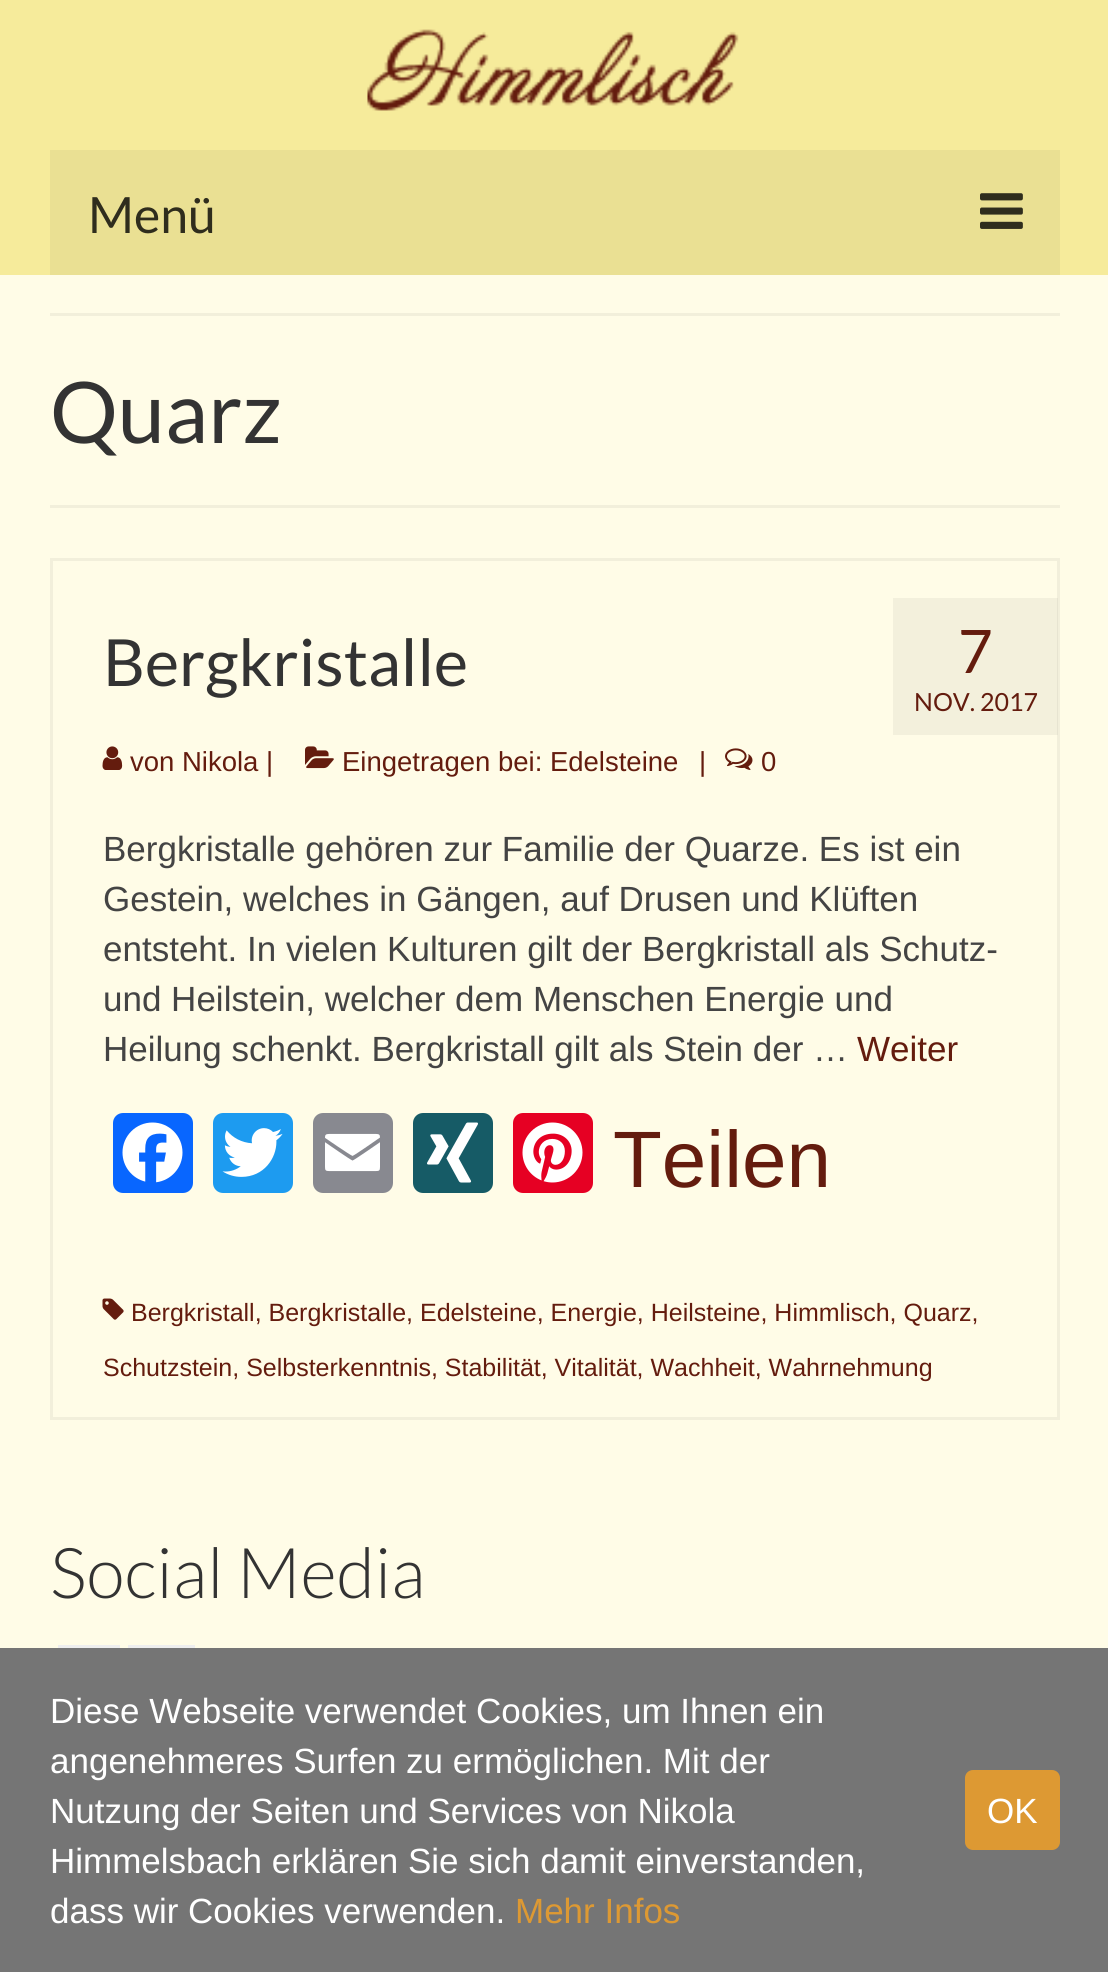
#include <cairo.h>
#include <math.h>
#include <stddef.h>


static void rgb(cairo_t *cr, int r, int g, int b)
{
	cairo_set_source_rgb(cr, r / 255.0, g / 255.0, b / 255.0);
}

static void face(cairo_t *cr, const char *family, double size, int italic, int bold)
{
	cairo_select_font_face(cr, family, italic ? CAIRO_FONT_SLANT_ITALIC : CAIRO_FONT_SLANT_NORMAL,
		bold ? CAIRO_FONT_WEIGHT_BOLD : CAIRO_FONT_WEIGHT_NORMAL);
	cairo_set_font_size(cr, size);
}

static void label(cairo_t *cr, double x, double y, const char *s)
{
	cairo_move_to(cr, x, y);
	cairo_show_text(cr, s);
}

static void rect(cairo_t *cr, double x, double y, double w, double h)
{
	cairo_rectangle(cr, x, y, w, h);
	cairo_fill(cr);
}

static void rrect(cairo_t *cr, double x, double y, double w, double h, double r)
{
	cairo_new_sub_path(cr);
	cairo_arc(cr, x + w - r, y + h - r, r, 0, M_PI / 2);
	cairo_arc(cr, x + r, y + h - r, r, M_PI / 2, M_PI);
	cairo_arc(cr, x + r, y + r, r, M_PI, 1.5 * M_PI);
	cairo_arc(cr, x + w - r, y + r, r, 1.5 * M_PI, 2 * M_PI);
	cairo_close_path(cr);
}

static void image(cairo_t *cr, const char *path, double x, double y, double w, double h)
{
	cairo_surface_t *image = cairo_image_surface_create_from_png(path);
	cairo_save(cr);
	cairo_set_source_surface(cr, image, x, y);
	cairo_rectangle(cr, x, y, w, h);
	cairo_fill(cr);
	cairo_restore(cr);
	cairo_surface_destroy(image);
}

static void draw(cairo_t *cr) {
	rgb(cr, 246, 235, 155);
	cairo_paint(cr);
	image(cr, "image0.png", 367, 29, 372, 82);
	rgb(cr, 234, 224, 147);
	rect(cr, 50, 150, 1010, 125);
	face(cr, "Lato", 50, 0, 0);
	rgb(cr, 47, 45, 29);
	label(cr, 88, 233, "Menü");
	image(cr, "image1.png", 980, 193, 43, 36);
	rgb(cr, 255, 252, 231);
	rect(cr, 0, 275, 1108, 1373);
	rgb(cr, 242, 239, 219);
	rect(cr, 50, 313, 1010, 3);
	rect(cr, 50, 505, 1010, 3);
	face(cr, "Lato", 85, 0, 0);
	rgb(cr, 51, 51, 51);
	label(cr, 50, 443, "Quarz");
	cairo_rectangle(cr, 51.5, 559.5, 1007, 859);
	rgb(cr, 242, 239, 219);
	cairo_set_line_width(cr, 3);
	cairo_stroke(cr);
	face(cr, "Lato", 65, 0, 0);
	rgb(cr, 51, 51, 51);
	label(cr, 103, 686, "Bergkristalle");
	image(cr, "image2.png", 102, 746, 21, 24);
	face(cr, "Liberation Sans", 27.5, 0, 0);
	rgb(cr, 100, 28, 14);
	label(cr, 130, 771, "von Nikola |");
	image(cr, "image3.png", 305, 746, 29, 23);
	label(cr, 342, 771, "Eingetragen bei: Edelsteine");
	label(cr, 699, 771, "|");
	image(cr, "image4.png", 725, 748, 28, 22);
	label(cr, 761, 771, "0");
	cairo_set_source_rgba(cr, 0, 0, 0, 0.05);
	rect(cr, 893, 598, 165, 137);
	face(cr, "Lato", 60, 0, 0);
	rgb(cr, 100, 28, 14);
	label(cr, 958, 673, "7");
	face(cr, "Lato", 25, 0, 0);
	label(cr, 914, 711, "NOV. 2017");
	face(cr, "Liberation Sans", 35, 0, 0);
	rgb(cr, 68, 68, 68);
	label(cr, 103, 861, "Bergkristalle gehören zur Familie der Quarze. Es ist ein");
	label(cr, 103, 911, "Gestein, welches in Gängen, auf Drusen und Klüften");
	label(cr, 103, 961, "entsteht. In vielen Kulturen gilt der Bergkristall als Schutz-");
	label(cr, 103, 1011, "und Heilstein, welcher dem Menschen Energie und");
	label(cr, 103, 1061, "Heilung schenkt. Bergkristall gilt als Stein der …");
	rgb(cr, 100, 28, 14);
	label(cr, 857, 1061, "Weiter");
	rgb(cr, 8, 102, 255);
	rrect(cr, 113, 1113, 80, 80, 10);
	cairo_fill(cr);
	image(cr, "image5.png", 122, 1122, 61, 61);
	rgb(cr, 29, 155, 240);
	rrect(cr, 213, 1113, 80, 80, 10);
	cairo_fill(cr);
	image(cr, "image6.png", 222, 1128, 61, 49);
	rgb(cr, 136, 137, 144);
	rrect(cr, 313, 1113, 80, 80, 10);
	cairo_fill(cr);
	image(cr, "image7.png", 325, 1133, 55, 39);
	rgb(cr, 22, 91, 102);
	rrect(cr, 413, 1113, 80, 80, 10);
	cairo_fill(cr);
	image(cr, "image8.png", 427, 1122, 51, 61);
	rgb(cr, 230, 0, 35);
	rrect(cr, 513, 1113, 80, 80, 10);
	cairo_fill(cr);
	image(cr, "image9.png", 522, 1122, 61, 61);
	face(cr, "Liberation Sans", 80, 0, 0);
	rgb(cr, 100, 28, 14);
	label(cr, 613, 1187, "Teilen");
	image(cr, "image10.png", 102, 1298, 22, 22);
	face(cr, "Liberation Sans", 25, 0, 0);
	label(cr, 131, 1321, "Bergkristall, Bergkristalle, Edelsteine, Energie, Heilsteine, Himmlisch, Quarz,");
	label(cr, 103, 1376, "Schutzstein, Selbsterkenntnis, Stabilität, Vitalität, Wachheit, Wahrnehmung");
	face(cr, "Lato Light", 70, 0, 0);
	rgb(cr, 51, 51, 51);
	label(cr, 50, 1598, "Social Media");
	rgb(cr, 238, 238, 238);
	rect(cr, 58, 1645, 62, 3);
	rect(cr, 128, 1645, 67, 3);
	rgb(cr, 117, 117, 117);
	rect(cr, 0, 1648, 1108, 324);
	face(cr, "Liberation Sans", 35, 0, 0);
	rgb(cr, 255, 255, 255);
	label(cr, 50, 1723, "Diese Webseite verwendet Cookies, um Ihnen ein");
	label(cr, 50, 1773, "angenehmeres Surfen zu ermöglichen. Mit der");
	label(cr, 50, 1823, "Nutzung der Seiten und Services von Nikola");
	label(cr, 50, 1873, "Himmelsbach erklären Sie sich damit einverstanden,");
	label(cr, 50, 1923, "dass wir Cookies verwenden.");
	rgb(cr, 221, 153, 51);
	label(cr, 515, 1923, "Mehr Infos");
	rrect(cr, 965, 1770, 95, 80, 8);
	cairo_fill(cr);
	rgb(cr, 255, 255, 255);
	label(cr, 987, 1823, "OK");
}

int main(void) {
	cairo_surface_t *surface = cairo_image_surface_create(CAIRO_FORMAT_RGB24, 1108, 1972);
	cairo_t *cr = cairo_create(surface);
	cairo_font_options_t *options = cairo_font_options_create();
	cairo_font_options_set_hint_metrics(options, CAIRO_HINT_METRICS_OFF);
	cairo_font_options_set_hint_style(options, CAIRO_HINT_STYLE_NONE);
	cairo_set_font_options(cr, options);
	cairo_set_miter_limit(cr, 4);
	draw(cr);
	cairo_surface_write_to_png(surface, "render.png");
	cairo_font_options_destroy(options);
	cairo_destroy(cr);
	cairo_surface_destroy(surface);
	return 0;
}
